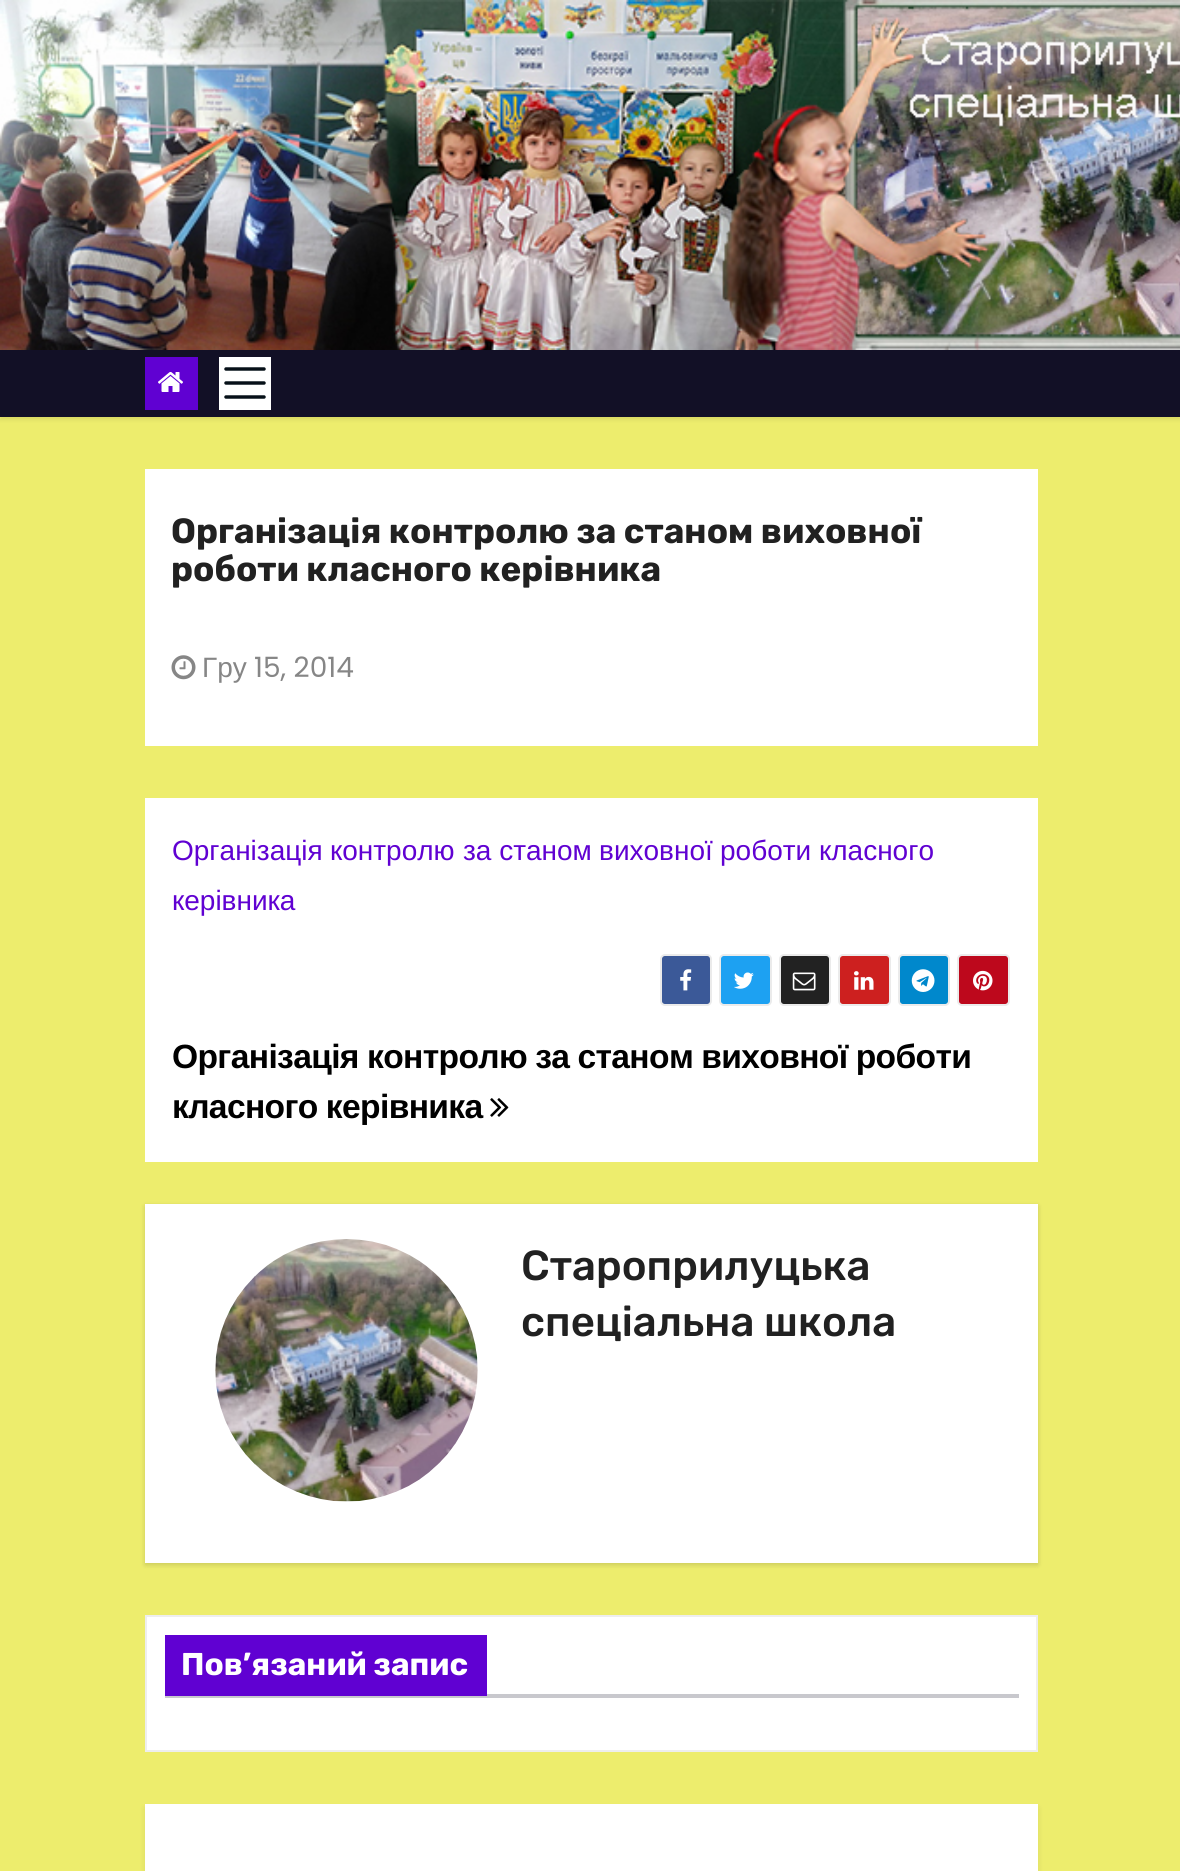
#include <cairo.h>
#include <math.h>
#include <stddef.h>


static void rgb(cairo_t *cr, int r, int g, int b)
{
	cairo_set_source_rgb(cr, r / 255.0, g / 255.0, b / 255.0);
}

static void face(cairo_t *cr, const char *family, double size, int italic, int bold)
{
	cairo_select_font_face(cr, family, italic ? CAIRO_FONT_SLANT_ITALIC : CAIRO_FONT_SLANT_NORMAL,
		bold ? CAIRO_FONT_WEIGHT_BOLD : CAIRO_FONT_WEIGHT_NORMAL);
	cairo_set_font_size(cr, size);
}

static void label(cairo_t *cr, double x, double y, const char *s)
{
	cairo_move_to(cr, x, y);
	cairo_show_text(cr, s);
}

static void tracked(cairo_t *cr, double x, double y, const char *s, double letter, double word)
{
	cairo_move_to(cr, x, y);
	while (*s) {
		char ch[5] = {0};
		int n = 0;
		do ch[n++] = *s++; while ((*s & 0xC0) == 0x80);
		cairo_show_text(cr, ch);
		cairo_rel_move_to(cr, letter + word * (*ch == ' '), 0);
	}
}

static void rect(cairo_t *cr, double x, double y, double w, double h)
{
	cairo_rectangle(cr, x, y, w, h);
	cairo_fill(cr);
}

static void rrect(cairo_t *cr, double x, double y, double w, double h, double r)
{
	cairo_new_sub_path(cr);
	cairo_arc(cr, x + w - r, y + h - r, r, 0, M_PI / 2);
	cairo_arc(cr, x + r, y + h - r, r, M_PI / 2, M_PI);
	cairo_arc(cr, x + r, y + r, r, M_PI, 1.5 * M_PI);
	cairo_arc(cr, x + w - r, y + r, r, 1.5 * M_PI, 2 * M_PI);
	cairo_close_path(cr);
}

static void soft_shadow(cairo_t *cr, double x, double y, double w, double h, double r, double blur, double alpha)
{
	cairo_push_group_with_content(cr, CAIRO_CONTENT_ALPHA);
	cairo_set_operator(cr, CAIRO_OPERATOR_SOURCE);
	for (int i = 15; i >= -15 && fmin(w, h) + blur * i / 3 > 0; i -= 2) {
		double e = blur * i / 6;
		cairo_set_source_rgba(cr, 0, 0, 0, alpha * erfc((i - 1) / 8.5) / 2);
		rrect(cr, x - e, y - e, w + 2 * e, h + 2 * e, fmax(0, fmin(r + e + blur * .6, fmin(w, h) / 2 + e)));
		cairo_fill(cr);
	}
	cairo_pattern_t *soft = cairo_pop_group(cr);
	cairo_mask(cr, soft);
	cairo_pattern_destroy(soft);
}

static void image(cairo_t *cr, const char *path, double x, double y, double w, double h)
{
	cairo_surface_t *image = cairo_image_surface_create_from_png(path);
	cairo_save(cr);
	cairo_set_source_surface(cr, image, x, y);
	cairo_rectangle(cr, x, y, w, h);
	cairo_fill(cr);
	cairo_restore(cr);
	cairo_surface_destroy(image);
}

static void draw(cairo_t *cr) {
	rgb(cr, 237, 237, 109);
	cairo_paint(cr);
	image(cr, "image0.png", 0, 0, 1180, 350);
	rgb(cr, 0, 0, 0);
	soft_shadow(cr, 0, 354, 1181, 66, 0, 2, 0.08);
	rgb(cr, 18, 16, 38);
	rect(cr, 0, 350, 1180, 67);
	rgb(cr, 96, 1, 210);
	rect(cr, 145, 357, 53, 53);
	image(cr, "image1.png", 158, 372, 25, 20);
	rgb(cr, 255, 255, 255);
	rect(cr, 219, 357, 52, 53);
	cairo_new_path(cr);
	cairo_move_to(cr, 226, 369);
	cairo_line_to(cr, 264, 369);
	cairo_move_to(cr, 226, 383);
	cairo_line_to(cr, 264, 383);
	cairo_move_to(cr, 226, 397);
	cairo_line_to(cr, 264, 397);
	rgb(cr, 6, 16, 24);
	cairo_set_line_width(cr, 3.5);
	cairo_set_line_cap(cr, CAIRO_LINE_CAP_ROUND);
	cairo_stroke(cr);
	rgb(cr, 255, 255, 255);
	rect(cr, 145, 469, 893, 277);
	face(cr, "Rubik", 35, 0, 1);
	rgb(cr, 33, 33, 33);
	label(cr, 171, 543, "Організація контролю за станом виховної");
	label(cr, 171, 581, "роботи класного керівника");
	image(cr, "image2.png", 171, 655, 25, 25);
	face(cr, "Liberation Sans", 28, 0, 0);
	rgb(cr, 134, 134, 134);
	label(cr, 202, 677, "Гру");
	face(cr, "Poppins", 28, 0, 0);
	label(cr, 254, 677, "15, 2014");
	rgb(cr, 255, 255, 255);
	rect(cr, 145, 798, 893, 364);
	face(cr, "Liberation Sans", 28, 0, 0);
	rgb(cr, 96, 1, 210);
	label(cr, 172, 860, "Організація");
	label(cr, 330, 860, "контролю");
	label(cr, 463, 860, "за станом");
	label(cr, 599, 860, "виховної");
	label(cr, 720, 860, "роботи класного");
	label(cr, 172, 910, "керівника");
	rgb(cr, 59, 89, 152);
	rrect(cr, 661, 955, 50, 50, 4);
	cairo_fill_preserve(cr);
	rgb(cr, 235, 235, 235);
	cairo_set_line_width(cr, 2);
	cairo_set_line_cap(cr, CAIRO_LINE_CAP_BUTT);
	cairo_stroke(cr);
	image(cr, "image3.png", 680, 969, 12, 22);
	rgb(cr, 29, 161, 242);
	rrect(cr, 720, 955, 51, 50, 4);
	cairo_fill_preserve(cr);
	rgb(cr, 235, 235, 235);
	cairo_stroke(cr);
	image(cr, "image4.png", 734, 972, 20, 17);
	rgb(cr, 34, 34, 34);
	rrect(cr, 780, 955, 50, 50, 4);
	cairo_fill_preserve(cr);
	rgb(cr, 235, 235, 235);
	cairo_stroke(cr);
	image(cr, "image5.png", 792, 972, 24, 19);
	rgb(cr, 205, 32, 31);
	rrect(cr, 839, 955, 51, 50, 4);
	cairo_fill_preserve(cr);
	rgb(cr, 235, 235, 235);
	cairo_stroke(cr);
	image(cr, "image6.png", 854, 971, 20, 19);
	rgb(cr, 0, 136, 204);
	rrect(cr, 899, 955, 50, 50, 4);
	cairo_fill_preserve(cr);
	rgb(cr, 235, 235, 235);
	cairo_stroke(cr);
	image(cr, "image7.png", 911, 969, 24, 23);
	rgb(cr, 189, 8, 28);
	rrect(cr, 958, 955, 51, 50, 4);
	cairo_fill_preserve(cr);
	rgb(cr, 235, 235, 235);
	cairo_stroke(cr);
	image(cr, "image8.png", 973, 970, 20, 21);
	face(cr, "Liberation Sans", 33.6, 0, 1);
	rgb(cr, 0, 0, 0);
	tracked(cr, 172, 1068, "Організація контролю за станом виховної роботи", -0.65, -0.5);
	tracked(cr, 172, 1118, "класного керівника", -0.65, -0.5);
	image(cr, "image9.png", 490, 1098, 19, 19);
	rgb(cr, 0, 0, 0);
	soft_shadow(cr, 145, 1206, 893, 359, 0, 2.5, 0.15);
	rgb(cr, 255, 255, 255);
	rect(cr, 145, 1204, 893, 359);
	image(cr, "image10.png", 215, 1239, 263, 263);
	face(cr, "Rubik Medium", 42, 0, 0);
	rgb(cr, 33, 33, 33);
	label(cr, 521, 1280, "Староприлуцька");
	label(cr, 521, 1336, "спеціальна школа");
	rgb(cr, 255, 255, 255);
	cairo_rectangle(cr, 146, 1616, 891, 135);
	cairo_fill_preserve(cr);
	rgb(cr, 238, 238, 238);
	cairo_stroke(cr);
	rgb(cr, 200, 200, 205);
	rect(cr, 165, 1694, 854, 4);
	rgb(cr, 96, 1, 210);
	rect(cr, 165, 1635, 322, 61);
	face(cr, "Rubik", 31.5, 0, 1);
	rgb(cr, 255, 255, 255);
	label(cr, 181, 1675, "Пов’язаний запис");
	rgb(cr, 0, 0, 0);
	soft_shadow(cr, 145, 1808, 893, 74, 0, 3.5, 0.08);
	rgb(cr, 255, 255, 255);
	rect(cr, 145, 1804, 893, 67);
}

int main(void) {
	cairo_surface_t *surface = cairo_image_surface_create(CAIRO_FORMAT_RGB24, 1180, 1871);
	cairo_t *cr = cairo_create(surface);
	cairo_font_options_t *options = cairo_font_options_create();
	cairo_font_options_set_hint_metrics(options, CAIRO_HINT_METRICS_OFF);
	cairo_font_options_set_hint_style(options, CAIRO_HINT_STYLE_NONE);
	cairo_set_font_options(cr, options);
	cairo_set_miter_limit(cr, 4);
	draw(cr);
	cairo_surface_write_to_png(surface, "render.png");
	cairo_font_options_destroy(options);
	cairo_destroy(cr);
	cairo_surface_destroy(surface);
	return 0;
}
